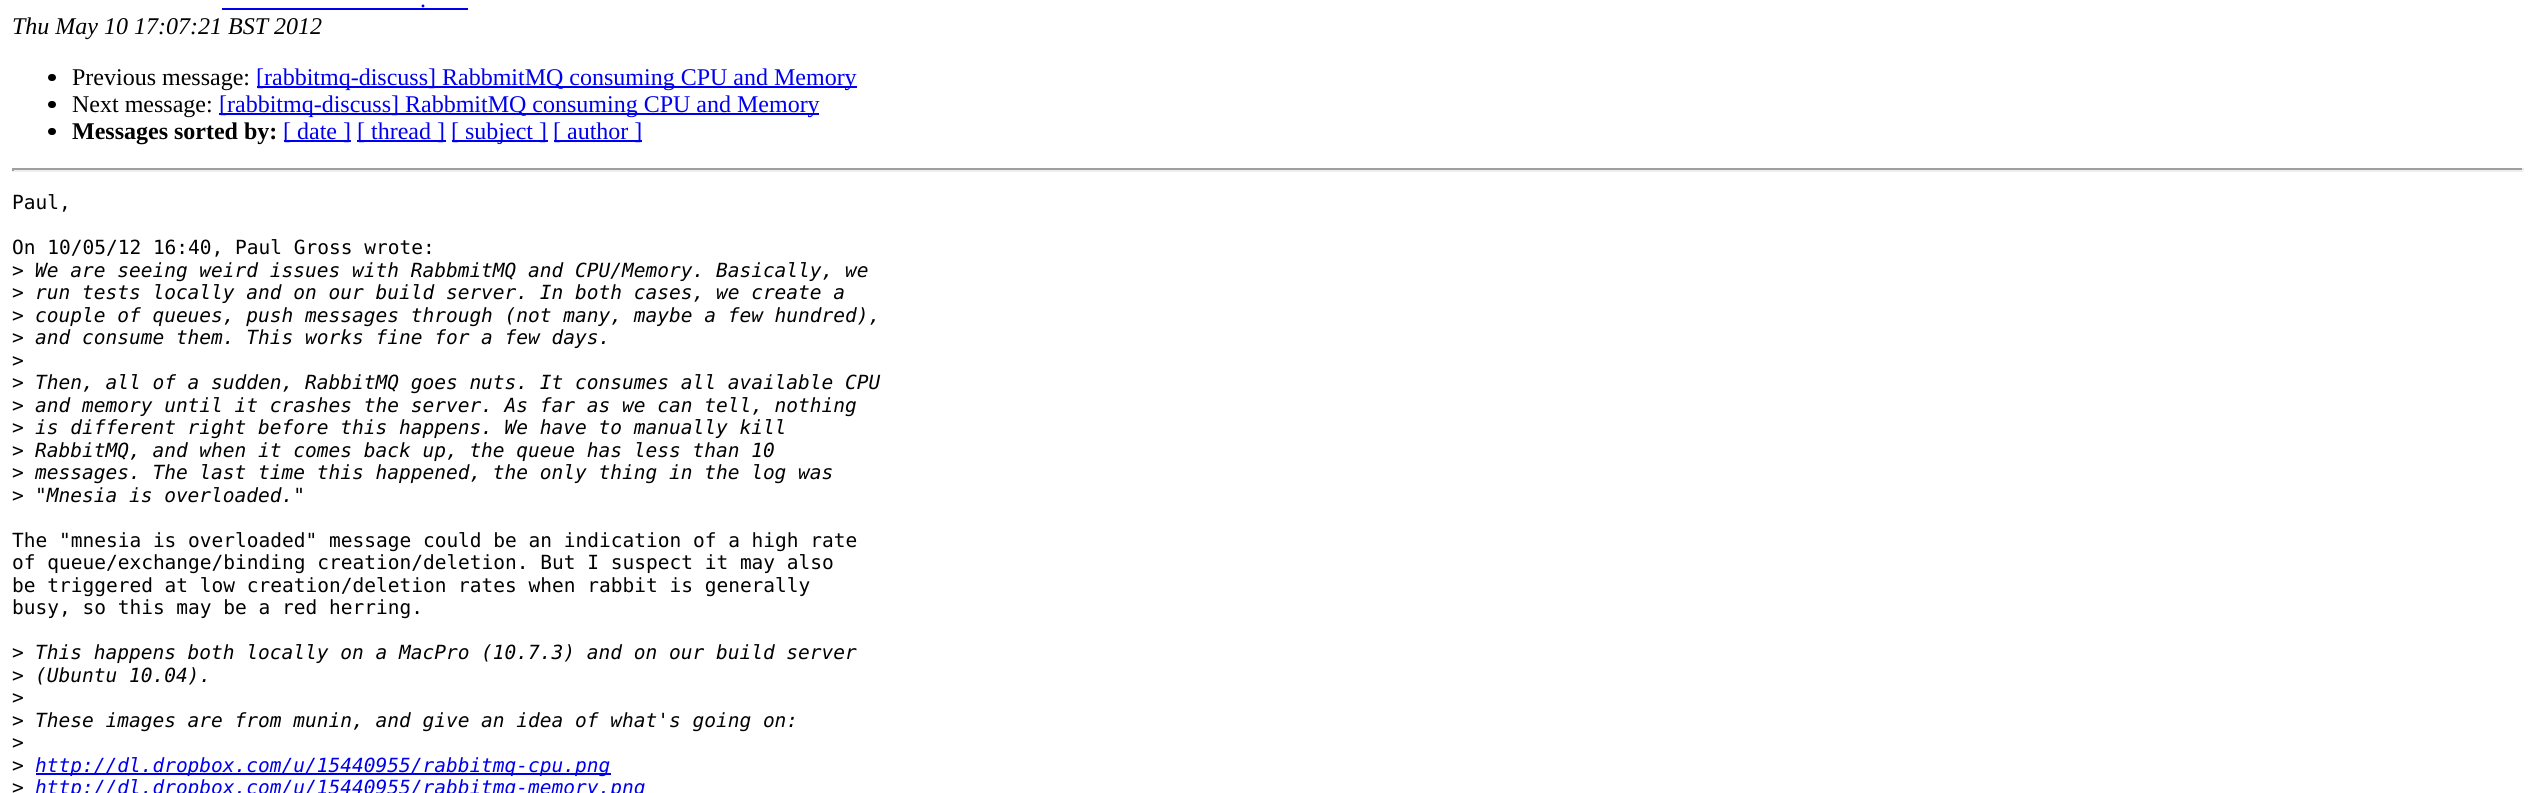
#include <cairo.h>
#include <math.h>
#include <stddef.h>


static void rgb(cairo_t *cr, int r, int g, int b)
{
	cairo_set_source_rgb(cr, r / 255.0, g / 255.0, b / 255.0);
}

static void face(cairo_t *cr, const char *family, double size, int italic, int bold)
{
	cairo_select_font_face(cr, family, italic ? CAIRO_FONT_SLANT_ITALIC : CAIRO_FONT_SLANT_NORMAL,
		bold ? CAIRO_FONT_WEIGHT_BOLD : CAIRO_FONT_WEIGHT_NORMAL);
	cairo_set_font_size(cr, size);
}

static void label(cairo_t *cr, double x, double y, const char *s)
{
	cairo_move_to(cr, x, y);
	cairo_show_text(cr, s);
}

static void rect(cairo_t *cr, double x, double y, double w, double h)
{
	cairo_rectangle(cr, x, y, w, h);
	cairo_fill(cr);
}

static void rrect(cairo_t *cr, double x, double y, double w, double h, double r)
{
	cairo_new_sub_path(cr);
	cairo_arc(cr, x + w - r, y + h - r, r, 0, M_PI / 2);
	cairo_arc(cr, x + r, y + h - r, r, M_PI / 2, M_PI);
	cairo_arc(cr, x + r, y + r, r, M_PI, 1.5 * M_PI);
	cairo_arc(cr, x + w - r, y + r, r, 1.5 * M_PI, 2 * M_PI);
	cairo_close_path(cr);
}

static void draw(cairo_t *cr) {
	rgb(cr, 255, 255, 255);
	cairo_paint(cr);
	face(cr, "Liberation Serif", 24, 0, 0);
	rgb(cr, 0, 0, 238);
	label(cr, 420, 7, ".");
	rect(cr, 222, 8, 246, 2);
	face(cr, "Liberation Serif", 24, 1, 0);
	rgb(cr, 0, 0, 0);
	label(cr, 12, 34, "Thu May 10 17:07:21 BST 2012");
	rrect(cr, 48, 74, 8, 7, 3.5);
	cairo_fill(cr);
	face(cr, "Liberation Serif", 24, 0, 0);
	label(cr, 72, 85, "Previous message:");
	rgb(cr, 0, 0, 238);
	rect(cr, 257, 86, 600, 2);
	label(cr, 256, 85, "[rabbitmq-discuss] RabbmitMQ consuming CPU and Memory");
	rgb(cr, 0, 0, 0);
	rrect(cr, 48, 101, 8, 7, 3.5);
	cairo_fill(cr);
	label(cr, 72, 112, "Next message:");
	rgb(cr, 0, 0, 238);
	rect(cr, 219, 113, 600, 2);
	label(cr, 219, 112, "[rabbitmq-discuss] RabbmitMQ consuming CPU and Memory");
	rgb(cr, 0, 0, 0);
	rrect(cr, 48, 128, 8, 7, 3.5);
	cairo_fill(cr);
	face(cr, "Liberation Serif", 24, 0, 1);
	label(cr, 72, 139, "Messages sorted by:");
	rgb(cr, 0, 0, 238);
	rect(cr, 284, 140, 67, 2);
	face(cr, "Liberation Serif", 24, 0, 0);
	label(cr, 283, 139, "[ date ]");
	rect(cr, 357, 140, 89, 2);
	label(cr, 357, 139, "[ thread ]");
	rect(cr, 452, 140, 96, 2);
	label(cr, 451, 139, "[ subject ]");
	rect(cr, 554, 140, 88, 2);
	label(cr, 553, 139, "[ author ]");
	rgb(cr, 159, 159, 159);
	rect(cr, 12, 168, 2511, 2);
	rgb(cr, 238, 238, 238);
	rect(cr, 2522, 168, 2, 3);
	rect(cr, 12, 170, 2511, 2);
	rgb(cr, 159, 159, 159);
	rect(cr, 12, 168, 2, 3);
	face(cr, "DejaVu Sans Mono", 19.5, 0, 0);
	rgb(cr, 0, 0, 0);
	label(cr, 12, 209, "Paul,");
	label(cr, 12, 254, "On 10/05/12 16:40, Paul Gross wrote:");
	label(cr, 12, 277, ">");
	face(cr, "DejaVu Sans Mono", 19.5, 1, 0);
	label(cr, 35, 277, "We are seeing weird issues with RabbmitMQ and CPU/Memory. Basically, we");
	face(cr, "DejaVu Sans Mono", 19.5, 0, 0);
	label(cr, 12, 299, ">");
	face(cr, "DejaVu Sans Mono", 19.5, 1, 0);
	label(cr, 35, 299, "run tests locally and on our build server. In both cases, we create a");
	face(cr, "DejaVu Sans Mono", 19.5, 0, 0);
	label(cr, 12, 322, ">");
	face(cr, "DejaVu Sans Mono", 19.5, 1, 0);
	label(cr, 35, 322, "couple of queues, push messages through (not many, maybe a few hundred),");
	face(cr, "DejaVu Sans Mono", 19.5, 0, 0);
	label(cr, 12, 344, ">");
	face(cr, "DejaVu Sans Mono", 19.5, 1, 0);
	label(cr, 35, 344, "and consume them. This works fine for a few days.");
	face(cr, "DejaVu Sans Mono", 19.5, 0, 0);
	label(cr, 12, 367, ">");
	label(cr, 12, 389, ">");
	face(cr, "DejaVu Sans Mono", 19.5, 1, 0);
	label(cr, 35, 389, "Then, all of a sudden, RabbitMQ goes nuts. It consumes all available CPU");
	face(cr, "DejaVu Sans Mono", 19.5, 0, 0);
	label(cr, 12, 412, ">");
	face(cr, "DejaVu Sans Mono", 19.5, 1, 0);
	label(cr, 35, 412, "and memory until it crashes the server. As far as we can tell, nothing");
	face(cr, "DejaVu Sans Mono", 19.5, 0, 0);
	label(cr, 12, 434, ">");
	face(cr, "DejaVu Sans Mono", 19.5, 1, 0);
	label(cr, 35, 434, "is different right before this happens. We have to manually kill");
	face(cr, "DejaVu Sans Mono", 19.5, 0, 0);
	label(cr, 12, 457, ">");
	face(cr, "DejaVu Sans Mono", 19.5, 1, 0);
	label(cr, 35, 457, "RabbitMQ, and when it comes back up, the queue has less than 10");
	face(cr, "DejaVu Sans Mono", 19.5, 0, 0);
	label(cr, 12, 479, ">");
	face(cr, "DejaVu Sans Mono", 19.5, 1, 0);
	label(cr, 35, 479, "messages. The last time this happened, the only thing in the log was");
	face(cr, "DejaVu Sans Mono", 19.5, 0, 0);
	label(cr, 12, 502, ">");
	face(cr, "DejaVu Sans Mono", 19.5, 1, 0);
	label(cr, 35, 502, "\"Mnesia is overloaded.\"");
	face(cr, "DejaVu Sans Mono", 19.5, 0, 0);
	label(cr, 12, 547, "The \"mnesia is overloaded\" message could be an indication of a high rate");
	label(cr, 12, 569, "of queue/exchange/binding creation/deletion. But I suspect it may also");
	label(cr, 12, 592, "be triggered at low creation/deletion rates when rabbit is generally");
	label(cr, 12, 614, "busy, so this may be a red herring.");
	label(cr, 12, 659, ">");
	face(cr, "DejaVu Sans Mono", 19.5, 1, 0);
	label(cr, 35, 659, "This happens both locally on a MacPro (10.7.3) and on our build server");
	face(cr, "DejaVu Sans Mono", 19.5, 0, 0);
	label(cr, 12, 682, ">");
	face(cr, "DejaVu Sans Mono", 19.5, 1, 0);
	label(cr, 35, 682, "(Ubuntu 10.04).");
	face(cr, "DejaVu Sans Mono", 19.5, 0, 0);
	label(cr, 12, 704, ">");
	label(cr, 12, 727, ">");
	face(cr, "DejaVu Sans Mono", 19.5, 1, 0);
	label(cr, 35, 727, "These images are from munin, and give an idea of what's going on:");
	face(cr, "DejaVu Sans Mono", 19.5, 0, 0);
	label(cr, 12, 749, ">");
	label(cr, 12, 772, ">");
	rgb(cr, 0, 0, 238);
	rect(cr, 36, 773, 575, 2);
	face(cr, "DejaVu Sans Mono", 19.5, 1, 0);
	label(cr, 35, 772, "http://dl.dropbox.com/u/15440955/rabbitmq-cpu.png");
	face(cr, "DejaVu Sans Mono", 19.5, 0, 0);
	rgb(cr, 0, 0, 0);
	label(cr, 12, 794, ">");
	face(cr, "DejaVu Sans Mono", 19.5, 1, 0);
	rgb(cr, 0, 0, 238);
	label(cr, 35, 794, "http://dl.dropbox.com/u/15440955/rabbitmq-memory.png");
}

int main(void) {
	cairo_surface_t *surface = cairo_image_surface_create(CAIRO_FORMAT_RGB24, 2534, 793);
	cairo_t *cr = cairo_create(surface);
	cairo_font_options_t *options = cairo_font_options_create();
	cairo_font_options_set_hint_metrics(options, CAIRO_HINT_METRICS_OFF);
	cairo_font_options_set_hint_style(options, CAIRO_HINT_STYLE_NONE);
	cairo_set_font_options(cr, options);
	cairo_set_miter_limit(cr, 4);
	draw(cr);
	cairo_surface_write_to_png(surface, "render.png");
	cairo_font_options_destroy(options);
	cairo_destroy(cr);
	cairo_surface_destroy(surface);
	return 0;
}
